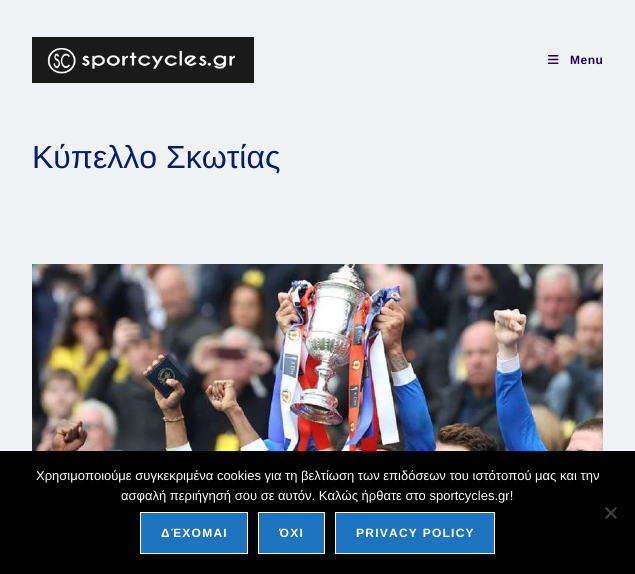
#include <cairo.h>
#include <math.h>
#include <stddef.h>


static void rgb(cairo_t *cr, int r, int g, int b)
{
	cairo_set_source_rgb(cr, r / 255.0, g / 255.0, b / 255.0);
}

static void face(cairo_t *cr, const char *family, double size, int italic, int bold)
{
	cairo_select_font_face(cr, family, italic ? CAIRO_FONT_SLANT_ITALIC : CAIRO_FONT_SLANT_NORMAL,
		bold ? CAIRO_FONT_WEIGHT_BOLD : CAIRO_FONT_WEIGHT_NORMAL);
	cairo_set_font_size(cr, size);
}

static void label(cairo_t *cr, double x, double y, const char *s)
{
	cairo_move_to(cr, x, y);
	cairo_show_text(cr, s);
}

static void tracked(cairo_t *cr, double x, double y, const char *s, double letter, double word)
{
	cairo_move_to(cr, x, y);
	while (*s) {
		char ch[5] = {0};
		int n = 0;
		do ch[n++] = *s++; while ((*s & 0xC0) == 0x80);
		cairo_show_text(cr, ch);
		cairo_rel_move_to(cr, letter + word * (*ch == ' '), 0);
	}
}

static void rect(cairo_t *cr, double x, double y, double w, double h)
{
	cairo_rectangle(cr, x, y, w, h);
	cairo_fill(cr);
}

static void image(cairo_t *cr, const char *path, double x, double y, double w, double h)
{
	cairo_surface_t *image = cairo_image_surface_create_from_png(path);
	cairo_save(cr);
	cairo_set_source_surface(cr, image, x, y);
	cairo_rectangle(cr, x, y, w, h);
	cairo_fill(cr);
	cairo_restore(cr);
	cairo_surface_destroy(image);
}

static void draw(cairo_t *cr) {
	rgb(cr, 240, 242, 245);
	cairo_paint(cr);
	image(cr, "image0.png", 32, 37, 222, 46);
	image(cr, "image1.png", 548, 55, 11, 9);
	face(cr, "Liberation Sans", 12, 0, 1);
	rgb(cr, 29, 0, 94);
	tracked(cr, 570, 64, "Menu", 0.5, 0);
	face(cr, "Liberation Sans", 32, 0, 0);
	rgb(cr, 0, 30, 114);
	label(cr, 32, 168, "Κύπελλο Σκωτίας");
	image(cr, "image2.png", 32, 264, 571, 187);
	rgb(cr, 0, 0, 0);
	rect(cr, 0, 451, 635, 123);
	face(cr, "Liberation Sans", 13, 0, 0);
	rgb(cr, 255, 255, 255);
	label(cr, 36, 480, "Χρησιμοποιούμε συγκεκριμένα cookies για τη βελτίωση των επιδόσεων του ιστότοπού μας και την");
	label(cr, 121, 500, "ασφαλή περιήγησή σου σε αυτόν. Καλώς ήρθατε στο sportcycles.gr!");
	rgb(cr, 64, 64, 64);
	cairo_new_path(cr);
	cairo_move_to(cr, 615.5, 507);
	cairo_line_to(cr, 617, 508.5);
	cairo_line_to(cr, 606.5, 519);
	cairo_line_to(cr, 605, 517.5);
	cairo_close_path(cr);
	cairo_fill(cr);
	cairo_new_path(cr);
	cairo_move_to(cr, 605, 508.5);
	cairo_line_to(cr, 606.5, 507);
	cairo_line_to(cr, 617, 517.5);
	cairo_line_to(cr, 615.5, 519);
	cairo_close_path(cr);
	cairo_fill(cr);
	rgb(cr, 30, 115, 190);
	cairo_rectangle(cr, 140.5, 512.5, 107, 41);
	cairo_fill_preserve(cr);
	rgb(cr, 255, 255, 255);
	cairo_set_line_width(cr, 1);
	cairo_stroke(cr);
	face(cr, "Liberation Sans", 12, 0, 1);
	tracked(cr, 161, 537, "ΔΈΧΟΜΑΙ", 1.25, 0);
	rgb(cr, 30, 115, 190);
	cairo_rectangle(cr, 258.5, 512.5, 66, 41);
	cairo_fill_preserve(cr);
	rgb(cr, 255, 255, 255);
	cairo_stroke(cr);
	tracked(cr, 279, 537, "ΌΧΙ", 1.25, 0);
	rgb(cr, 30, 115, 190);
	cairo_rectangle(cr, 335.5, 512.5, 159, 41);
	cairo_fill_preserve(cr);
	rgb(cr, 255, 255, 255);
	cairo_stroke(cr);
	tracked(cr, 356, 537, "PRIVACY POLICY", 1.25, 0);
}

int main(void) {
	cairo_surface_t *surface = cairo_image_surface_create(CAIRO_FORMAT_RGB24, 635, 574);
	cairo_t *cr = cairo_create(surface);
	cairo_font_options_t *options = cairo_font_options_create();
	cairo_font_options_set_hint_metrics(options, CAIRO_HINT_METRICS_OFF);
	cairo_font_options_set_hint_style(options, CAIRO_HINT_STYLE_NONE);
	cairo_set_font_options(cr, options);
	cairo_set_miter_limit(cr, 4);
	draw(cr);
	cairo_surface_write_to_png(surface, "render.png");
	cairo_font_options_destroy(options);
	cairo_destroy(cr);
	cairo_surface_destroy(surface);
	return 0;
}
